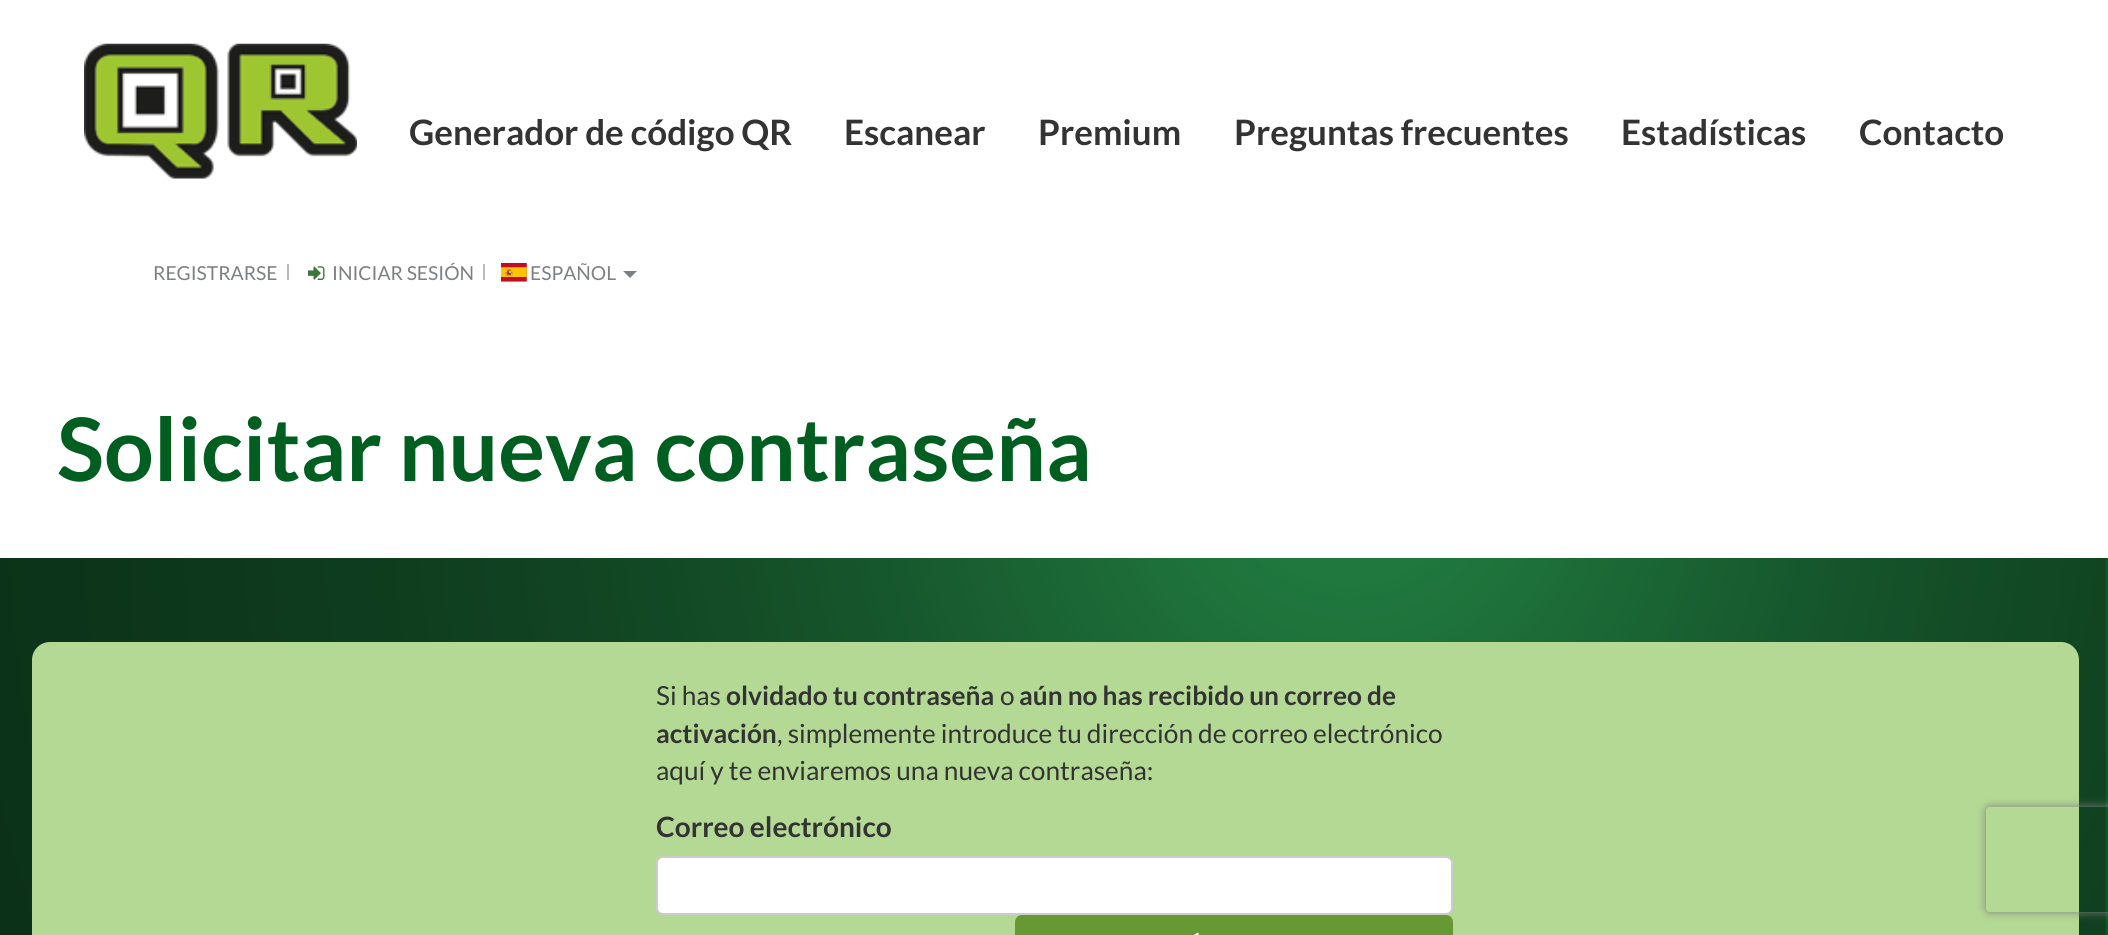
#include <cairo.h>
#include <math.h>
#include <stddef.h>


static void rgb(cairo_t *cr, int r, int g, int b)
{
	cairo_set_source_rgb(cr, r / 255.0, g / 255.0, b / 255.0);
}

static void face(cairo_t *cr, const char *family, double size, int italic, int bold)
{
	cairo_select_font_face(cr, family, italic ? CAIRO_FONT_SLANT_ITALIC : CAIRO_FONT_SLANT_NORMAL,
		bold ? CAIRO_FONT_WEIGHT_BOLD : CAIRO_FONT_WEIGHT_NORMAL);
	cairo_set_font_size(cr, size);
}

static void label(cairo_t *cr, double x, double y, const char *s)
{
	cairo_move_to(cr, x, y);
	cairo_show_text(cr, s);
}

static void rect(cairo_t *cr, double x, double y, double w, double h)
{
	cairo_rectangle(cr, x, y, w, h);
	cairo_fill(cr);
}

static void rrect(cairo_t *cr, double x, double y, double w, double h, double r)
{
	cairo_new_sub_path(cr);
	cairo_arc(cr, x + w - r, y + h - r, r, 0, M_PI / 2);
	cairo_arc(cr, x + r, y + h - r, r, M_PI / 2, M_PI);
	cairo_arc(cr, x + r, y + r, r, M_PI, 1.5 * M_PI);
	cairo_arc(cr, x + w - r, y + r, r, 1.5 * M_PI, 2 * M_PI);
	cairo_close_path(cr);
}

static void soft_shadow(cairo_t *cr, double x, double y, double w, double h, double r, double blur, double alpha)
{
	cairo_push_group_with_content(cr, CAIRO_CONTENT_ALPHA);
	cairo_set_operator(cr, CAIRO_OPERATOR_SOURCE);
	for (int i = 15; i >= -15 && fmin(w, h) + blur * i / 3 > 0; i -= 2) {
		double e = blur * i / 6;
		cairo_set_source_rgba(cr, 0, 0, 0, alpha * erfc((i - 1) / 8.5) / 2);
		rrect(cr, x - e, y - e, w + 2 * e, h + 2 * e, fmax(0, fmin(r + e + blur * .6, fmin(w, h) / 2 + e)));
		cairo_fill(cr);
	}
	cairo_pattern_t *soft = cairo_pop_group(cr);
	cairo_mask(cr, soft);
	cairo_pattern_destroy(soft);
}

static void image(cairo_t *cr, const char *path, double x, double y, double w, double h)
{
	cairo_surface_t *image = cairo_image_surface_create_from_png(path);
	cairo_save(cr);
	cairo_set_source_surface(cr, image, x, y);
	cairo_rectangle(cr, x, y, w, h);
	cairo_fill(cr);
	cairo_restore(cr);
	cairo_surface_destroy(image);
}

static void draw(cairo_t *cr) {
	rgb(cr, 255, 255, 255);
	cairo_paint(cr);
	image(cr, "image0.png", 84, 43, 273, 136);
	face(cr, "Lato", 35, 0, 1);
	rgb(cr, 51, 51, 51);
	label(cr, 409, 145, "Generador de código QR");
	label(cr, 844, 145, "Escanear");
	label(cr, 1038, 145, "Premium");
	label(cr, 1234, 145, "Preguntas frecuentes");
	label(cr, 1621, 145, "Estadísticas");
	label(cr, 1859, 145, "Contacto");
	face(cr, "Lato", 19.25, 0, 0);
	rgb(cr, 124, 128, 130);
	label(cr, 153, 280, "REGISTRARSE");
	rgb(cr, 187, 187, 187);
	rect(cr, 287, 264, 2, 16);
	image(cr, "image1.png", 308, 266, 17, 14);
	rgb(cr, 124, 128, 130);
	label(cr, 332, 280, "INICIAR SESIÓN");
	rgb(cr, 187, 187, 187);
	rect(cr, 483, 264, 2, 16);
	image(cr, "image2.png", 501, 263, 26, 19);
	rgb(cr, 124, 128, 130);
	label(cr, 530, 280, "ESPAÑOL");
	cairo_new_path(cr);
	cairo_move_to(cr, 623, 271);
	cairo_line_to(cr, 637, 271);
	cairo_line_to(cr, 630, 278);
	cairo_close_path(cr);
	cairo_fill(cr);
	face(cr, "Lato", 87.5, 0, 1);
	rgb(cr, 0, 94, 32);
	label(cr, 57, 481, "Solicitar nueva contraseña");
	image(cr, "image3.png", 0, 558, 2108, 377);
	rgb(cr, 179, 217, 148);
	rrect(cr, 32, 642, 2047, 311, 18);
	cairo_fill(cr);
	face(cr, "Lato", 26.25, 0, 0);
	rgb(cr, 51, 51, 51);
	label(cr, 656, 705, "Si has");
	face(cr, "Lato", 26.25, 0, 1);
	label(cr, 726, 705, "olvidado tu contraseña");
	face(cr, "Lato", 26.25, 0, 0);
	label(cr, 1000, 705, "o");
	face(cr, "Lato", 26.25, 0, 1);
	label(cr, 1019, 705, "aún no has recibido un correo de");
	label(cr, 656, 743, "activación");
	face(cr, "Lato", 26.25, 0, 0);
	label(cr, 777, 743, ", simplemente introduce tu dirección de correo electrónico");
	label(cr, 656, 780, "aquí y te enviaremos una nueva contraseña:");
	face(cr, "Lato", 28, 0, 1);
	label(cr, 656, 837, "Correo electrónico");
	rgb(cr, 255, 255, 255);
	rrect(cr, 657, 857, 795, 57, 6);
	cairo_fill_preserve(cr);
	rgb(cr, 204, 204, 204);
	cairo_stroke(cr);
	cairo_save(cr);
	cairo_set_fill_rule(cr, CAIRO_FILL_RULE_EVEN_ODD);
	cairo_new_path(cr);
	cairo_move_to(cr, 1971, 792);
	cairo_line_to(cr, 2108, 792);
	cairo_line_to(cr, 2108, 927);
	cairo_line_to(cr, 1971, 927);
	cairo_close_path(cr);
	cairo_move_to(cr, 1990, 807);
	cairo_line_to(cr, 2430, 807);
	cairo_curve_to(cr, 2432, 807, 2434, 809, 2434, 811);
	cairo_line_to(cr, 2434, 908);
	cairo_curve_to(cr, 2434, 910, 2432, 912, 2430, 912);
	cairo_line_to(cr, 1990, 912);
	cairo_curve_to(cr, 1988, 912, 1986, 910, 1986, 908);
	cairo_line_to(cr, 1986, 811);
	cairo_curve_to(cr, 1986, 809, 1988, 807, 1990, 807);
	cairo_close_path(cr);
	cairo_clip(cr);
	rgb(cr, 128, 128, 128);
	soft_shadow(cr, 1986, 807, 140, 105, 4, 4.5, 1);
	cairo_restore(cr);
	rgb(cr, 102, 153, 51);
	rrect(cr, 1016, 916, 436, 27, 6);
	cairo_fill_preserve(cr);
	cairo_stroke(cr);
	image(cr, "image4.png", 1194, 932, 5, 3);
}

int main(void) {
	cairo_surface_t *surface = cairo_image_surface_create(CAIRO_FORMAT_RGB24, 2108, 935);
	cairo_t *cr = cairo_create(surface);
	cairo_font_options_t *options = cairo_font_options_create();
	cairo_font_options_set_hint_metrics(options, CAIRO_HINT_METRICS_OFF);
	cairo_font_options_set_hint_style(options, CAIRO_HINT_STYLE_NONE);
	cairo_set_font_options(cr, options);
	cairo_set_miter_limit(cr, 4);
	draw(cr);
	cairo_surface_write_to_png(surface, "render.png");
	cairo_font_options_destroy(options);
	cairo_destroy(cr);
	cairo_surface_destroy(surface);
	return 0;
}
